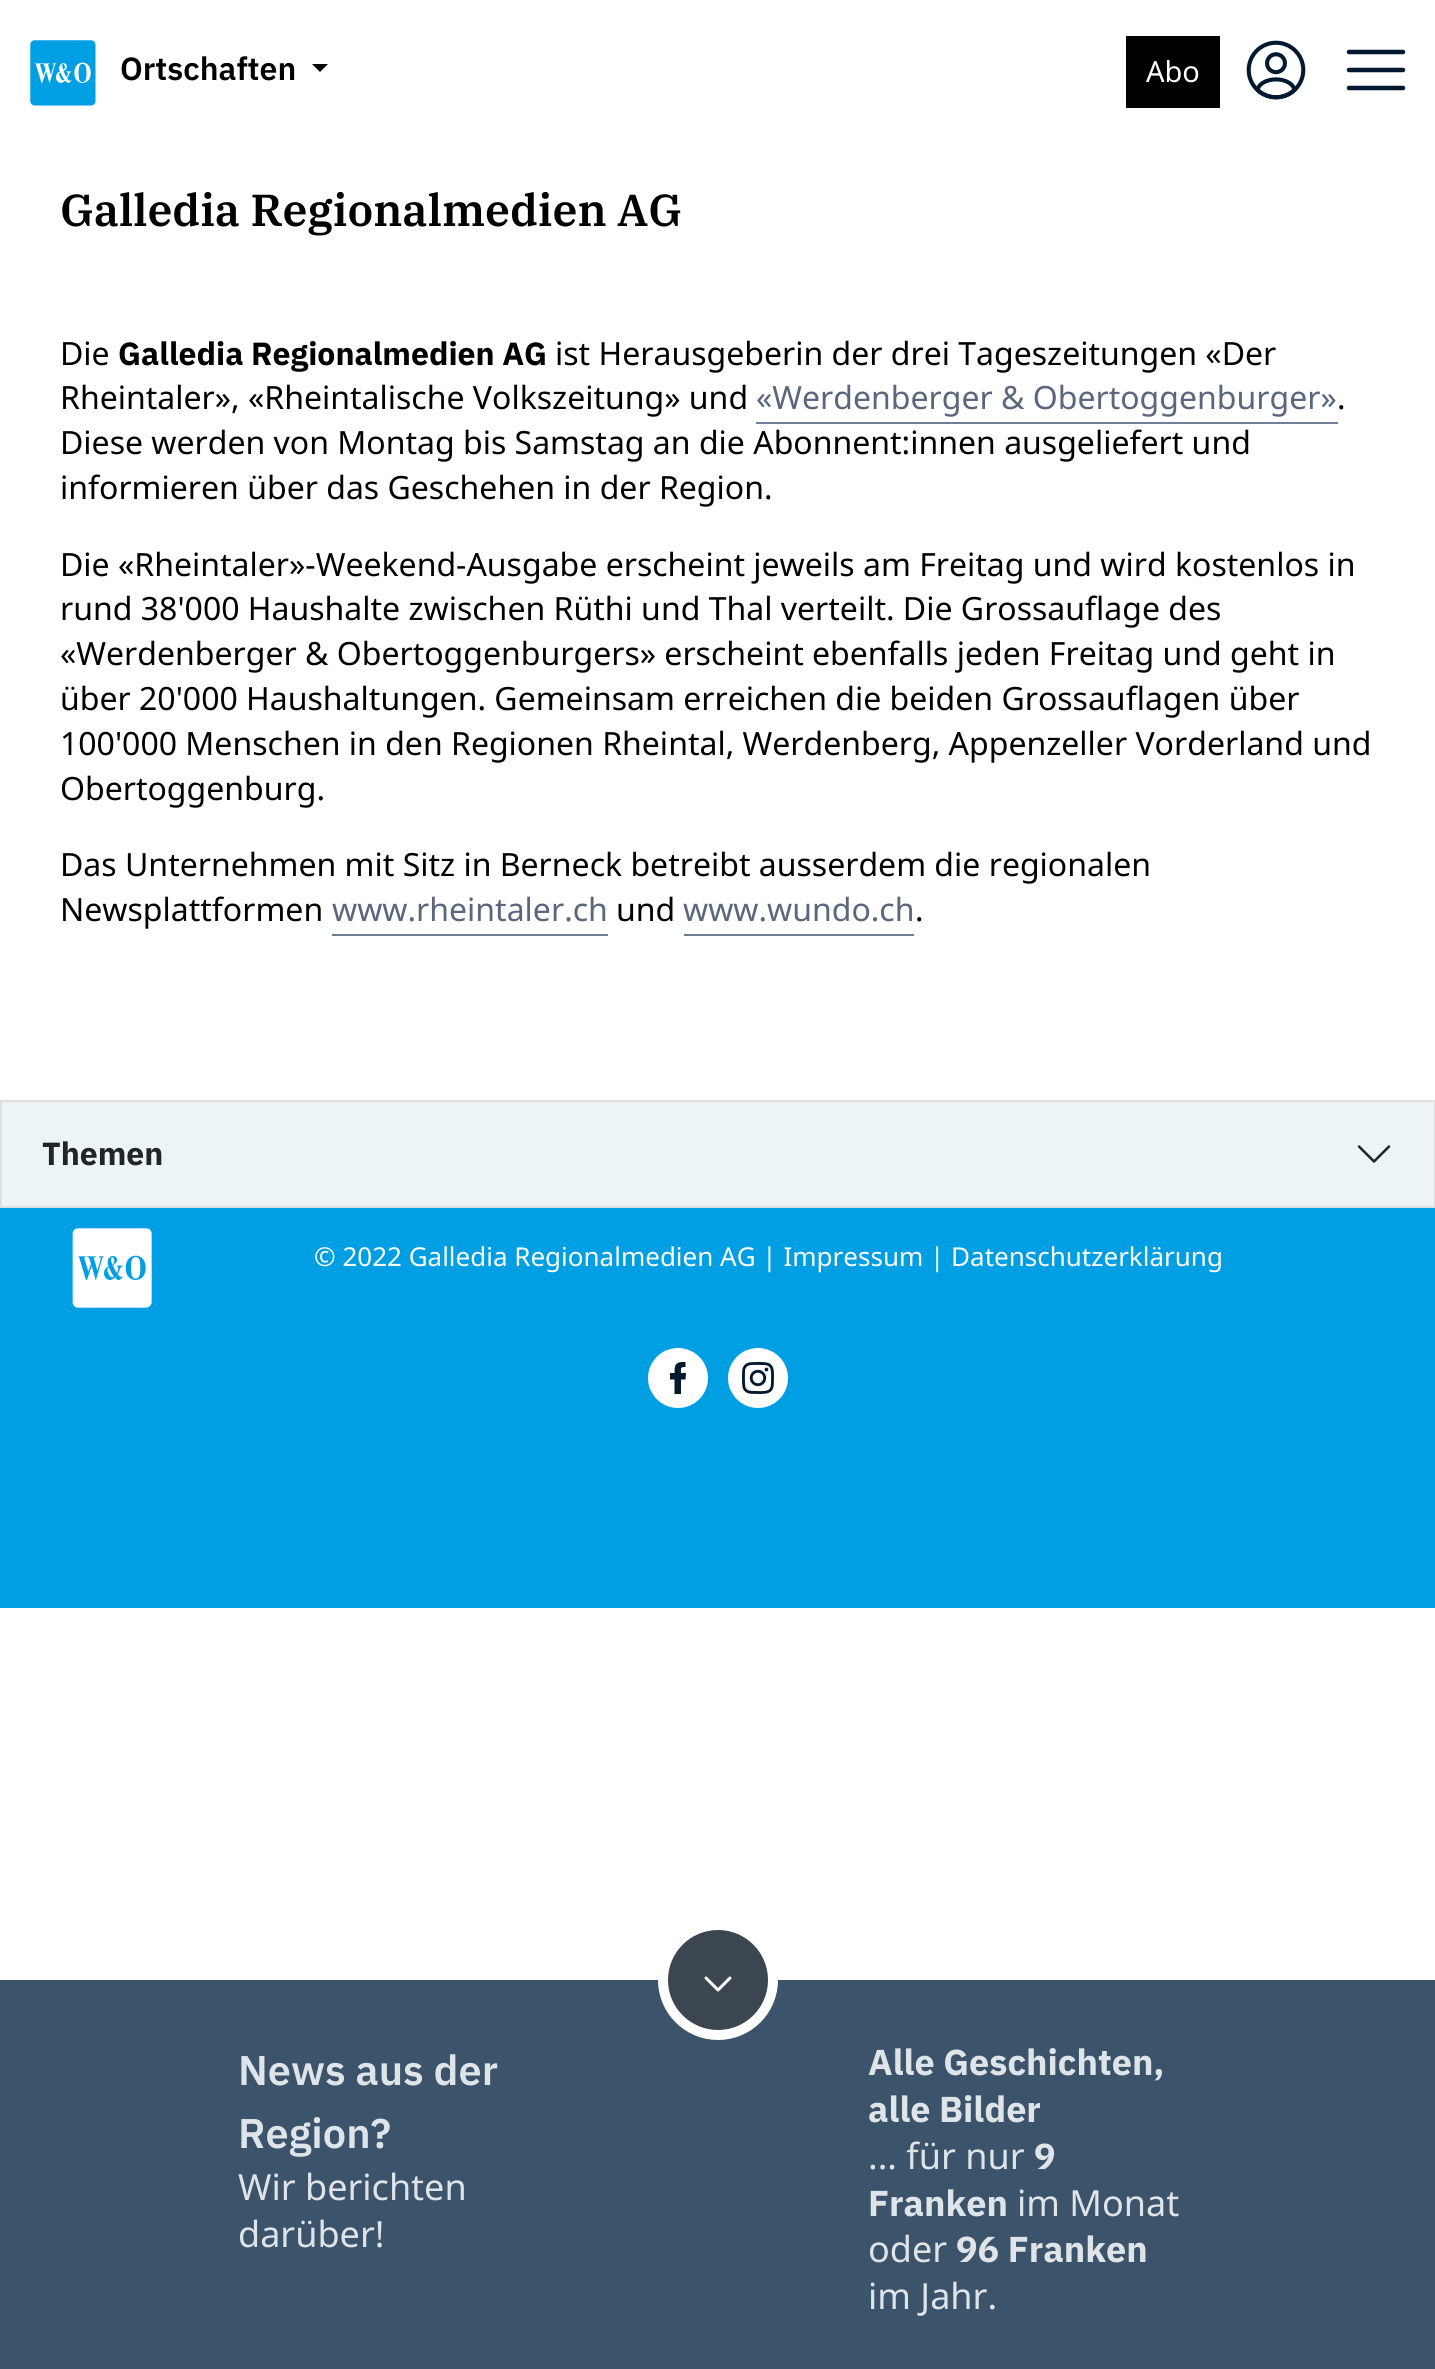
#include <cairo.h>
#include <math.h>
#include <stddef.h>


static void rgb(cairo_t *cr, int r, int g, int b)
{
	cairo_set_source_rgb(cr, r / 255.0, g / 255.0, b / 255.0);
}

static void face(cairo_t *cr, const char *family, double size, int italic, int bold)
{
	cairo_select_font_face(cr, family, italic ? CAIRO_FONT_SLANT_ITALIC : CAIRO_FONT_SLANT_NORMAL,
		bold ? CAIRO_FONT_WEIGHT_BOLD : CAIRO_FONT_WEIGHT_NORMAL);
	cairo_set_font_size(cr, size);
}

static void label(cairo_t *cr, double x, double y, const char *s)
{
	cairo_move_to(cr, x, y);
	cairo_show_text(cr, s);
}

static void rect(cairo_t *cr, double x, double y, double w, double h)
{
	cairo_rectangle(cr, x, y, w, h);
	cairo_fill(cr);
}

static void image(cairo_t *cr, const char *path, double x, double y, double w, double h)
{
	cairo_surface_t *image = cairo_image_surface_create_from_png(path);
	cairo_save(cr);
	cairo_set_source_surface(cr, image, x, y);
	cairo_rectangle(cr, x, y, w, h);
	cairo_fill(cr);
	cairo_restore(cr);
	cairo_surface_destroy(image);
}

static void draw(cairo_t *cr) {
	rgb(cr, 255, 255, 255);
	cairo_paint(cr);
	image(cr, "image0.png", 30, 40, 66, 66);
	face(cr, "IBM Plex Sans SemiBold", 32, 0, 0);
	rgb(cr, 0, 0, 0);
	label(cr, 120, 80, "Ortschaften");
	cairo_new_path(cr);
	cairo_move_to(cr, 312, 64);
	cairo_line_to(cr, 328, 64);
	cairo_line_to(cr, 320, 72);
	cairo_close_path(cr);
	cairo_fill(cr);
	rect(cr, 1126, 36, 94, 72);
	face(cr, "Noto Sans", 29, 0, 0);
	rgb(cr, 255, 255, 255);
	label(cr, 1146, 82, "Abo");
	image(cr, "image1.png", 1246, 40, 60, 60);
	cairo_new_path(cr);
	cairo_move_to(cr, 1349, 52);
	cairo_line_to(cr, 1403, 52);
	cairo_move_to(cr, 1349, 70);
	cairo_line_to(cr, 1403, 70);
	cairo_move_to(cr, 1349, 88);
	cairo_line_to(cr, 1403, 88);
	rgb(cr, 2, 25, 48);
	cairo_set_line_width(cr, 4.5);
	cairo_set_line_cap(cr, CAIRO_LINE_CAP_ROUND);
	cairo_stroke(cr);
	face(cr, "IBM Plex Serif SemiBold", 44.75, 0, 0);
	rgb(cr, 0, 0, 0);
	label(cr, 60, 226, "Galledia Regionalmedien AG");
	face(cr, "Noto Sans", 32, 0, 0);
	label(cr, 60, 365, "Die");
	face(cr, "IBM Plex Sans", 32, 0, 1);
	label(cr, 118, 365, "Galledia Regionalmedien AG");
	face(cr, "Noto Sans", 32, 0, 0);
	label(cr, 555, 365, "ist Herausgeberin der drei Tageszeitungen «Der");
	label(cr, 60, 409, "Rheintaler», «Rheintalische Volkszeitung» und");
	rgb(cr, 89, 102, 123);
	label(cr, 756, 409, "«Werdenberger & Obertoggenburger»");
	rgb(cr, 112, 128, 154);
	rect(cr, 756, 422, 582, 2);
	rgb(cr, 0, 0, 0);
	label(cr, 1337, 409, ".");
	label(cr, 60, 454, "Diese werden von Montag bis Samstag an die Abonnent:innen ausgeliefert und");
	label(cr, 60, 499, "informieren über das Geschehen in der Region.");
	label(cr, 60, 576, "Die «Rheintaler»-Weekend-Ausgabe erscheint jeweils am Freitag und wird kostenlos in");
	label(cr, 60, 620, "rund 38'000 Haushalte zwischen Rüthi und Thal verteilt. Die Grossauflage des");
	label(cr, 60, 665, "«Werdenberger & Obertoggenburgers» erscheint ebenfalls jeden Freitag und geht in");
	label(cr, 60, 710, "über 20'000 Haushaltungen. Gemeinsam erreichen die beiden Grossauflagen über");
	label(cr, 60, 755, "100'000 Menschen in den Regionen Rheintal, Werdenberg, Appenzeller Vorderland und");
	label(cr, 60, 800, "Obertoggenburg.");
	label(cr, 60, 876, "Das Unternehmen mit Sitz in Berneck betreibt ausserdem die regionalen");
	label(cr, 60, 921, "Newsplattformen");
	rgb(cr, 89, 102, 123);
	label(cr, 332, 921, "www.rheintaler.ch");
	rgb(cr, 112, 128, 154);
	rect(cr, 332, 934, 276, 2);
	rgb(cr, 0, 0, 0);
	label(cr, 616, 921, "und");
	rgb(cr, 89, 102, 123);
	label(cr, 683, 921, "www.wundo.ch");
	rgb(cr, 112, 128, 154);
	rect(cr, 684, 934, 230, 2);
	rgb(cr, 0, 0, 0);
	label(cr, 915, 921, ".");
	cairo_rectangle(cr, 1, 1101, 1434, 106);
	rgb(cr, 223, 223, 223);
	cairo_set_line_width(cr, 2);
	cairo_set_line_cap(cr, CAIRO_LINE_CAP_BUTT);
	cairo_stroke(cr);
	rgb(cr, 237, 244, 248);
	rect(cr, 2, 1102, 1432, 104);
	face(cr, "IBM Plex Sans", 32, 0, 1);
	rgb(cr, 33, 37, 41);
	label(cr, 42, 1165, "Themen");
	image(cr, "image2.png", 1357, 1145, 34, 18);
	rgb(cr, 0, 159, 227);
	rect(cr, 0, 1208, 1435, 400);
	image(cr, "image3.png", 72, 1228, 80, 80);
	face(cr, "Noto Sans", 26, 0, 0);
	rgb(cr, 255, 255, 255);
	label(cr, 314, 1266, "© 2022 Galledia Regionalmedien AG | Impressum | Datenschutzerklärung");
	cairo_new_path(cr);
	cairo_arc(cr, 678, 1378, 30, 0, 2 * M_PI);
	cairo_fill(cr);
	rgb(cr, 2, 25, 48);
	cairo_set_fill_rule(cr, CAIRO_FILL_RULE_EVEN_ODD);
	cairo_new_path(cr);
	cairo_move_to(cr, 681, 1394);
	cairo_line_to(cr, 681, 1379.5);
	cairo_line_to(cr, 685.5, 1379.5);
	cairo_line_to(cr, 686, 1373);
	cairo_line_to(cr, 681, 1373);
	cairo_curve_to(cr, 681, 1368, 680, 1367, 685.5, 1367);
	cairo_line_to(cr, 685.5, 1362);
	cairo_line_to(cr, 681.5, 1362);
	cairo_curve_to(cr, 674.5, 1362.5, 674.5, 1367.5, 674.5, 1373);
	cairo_line_to(cr, 670, 1373);
	cairo_line_to(cr, 670, 1379.5);
	cairo_line_to(cr, 674.5, 1379.5);
	cairo_line_to(cr, 674.5, 1394);
	cairo_close_path(cr);
	cairo_fill(cr);
	image(cr, "image4.png", 728, 1348, 60, 60);
	rgb(cr, 60, 84, 107);
	rect(cr, 0, 1980, 1435, 389);
	rgb(cr, 60, 70, 80);
	cairo_arc(cr, 718, 1980, 55, 0, 2 * M_PI);
	cairo_fill_preserve(cr);
	rgb(cr, 255, 255, 255);
	cairo_set_line_width(cr, 10);
	cairo_stroke(cr);
	cairo_new_path(cr);
	cairo_move_to(cr, 706, 1978);
	cairo_line_to(cr, 718, 1990);
	cairo_line_to(cr, 730, 1978);
	cairo_set_line_width(cr, 3);
	cairo_set_line_cap(cr, CAIRO_LINE_CAP_ROUND);
	cairo_set_line_join(cr, CAIRO_LINE_JOIN_ROUND);
	cairo_stroke(cr);
	face(cr, "IBM Plex Sans SemiBold", 41.5, 0, 0);
	rgb(cr, 223, 228, 233);
	label(cr, 238, 2085, "News aus der");
	label(cr, 238, 2148, "Region?");
	face(cr, "Noto Sans", 36, 0, 0);
	label(cr, 238, 2200, "Wir berichten");
	label(cr, 238, 2247, "darüber!");
	face(cr, "IBM Plex Sans", 36, 0, 1);
	label(cr, 868, 2075, "Alle Geschichten,");
	label(cr, 868, 2122, "alle Bilder");
	face(cr, "Noto Sans", 36, 0, 0);
	label(cr, 868, 2169, "... für nur");
	face(cr, "IBM Plex Sans", 36, 0, 1);
	label(cr, 1034, 2169, "9");
	label(cr, 868, 2216, "Franken");
	face(cr, "Noto Sans", 36, 0, 0);
	label(cr, 1017, 2216, "im Monat");
	label(cr, 868, 2262, "oder");
	face(cr, "IBM Plex Sans", 36, 0, 1);
	label(cr, 956, 2262, "96 Franken");
	face(cr, "Noto Sans", 36, 0, 0);
	label(cr, 868, 2309, "im Jahr.");
}

int main(void) {
	cairo_surface_t *surface = cairo_image_surface_create(CAIRO_FORMAT_RGB24, 1435, 2369);
	cairo_t *cr = cairo_create(surface);
	cairo_font_options_t *options = cairo_font_options_create();
	cairo_font_options_set_hint_metrics(options, CAIRO_HINT_METRICS_OFF);
	cairo_font_options_set_hint_style(options, CAIRO_HINT_STYLE_NONE);
	cairo_set_font_options(cr, options);
	cairo_set_miter_limit(cr, 4);
	draw(cr);
	cairo_surface_write_to_png(surface, "render.png");
	cairo_font_options_destroy(options);
	cairo_destroy(cr);
	cairo_surface_destroy(surface);
	return 0;
}
